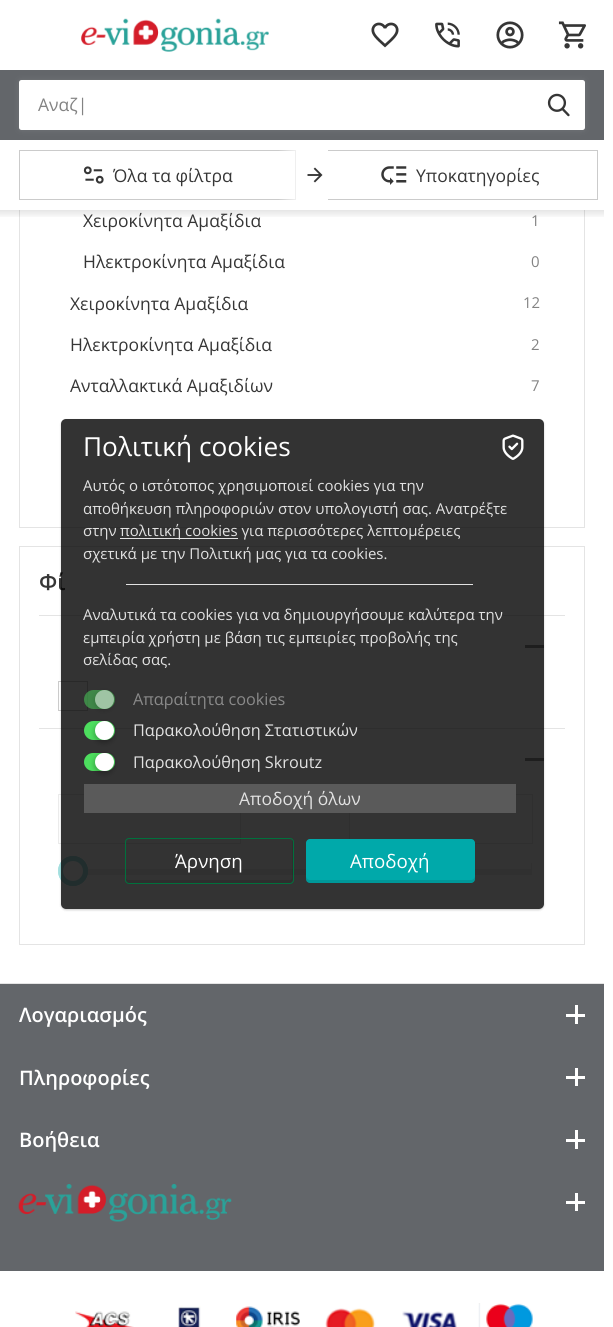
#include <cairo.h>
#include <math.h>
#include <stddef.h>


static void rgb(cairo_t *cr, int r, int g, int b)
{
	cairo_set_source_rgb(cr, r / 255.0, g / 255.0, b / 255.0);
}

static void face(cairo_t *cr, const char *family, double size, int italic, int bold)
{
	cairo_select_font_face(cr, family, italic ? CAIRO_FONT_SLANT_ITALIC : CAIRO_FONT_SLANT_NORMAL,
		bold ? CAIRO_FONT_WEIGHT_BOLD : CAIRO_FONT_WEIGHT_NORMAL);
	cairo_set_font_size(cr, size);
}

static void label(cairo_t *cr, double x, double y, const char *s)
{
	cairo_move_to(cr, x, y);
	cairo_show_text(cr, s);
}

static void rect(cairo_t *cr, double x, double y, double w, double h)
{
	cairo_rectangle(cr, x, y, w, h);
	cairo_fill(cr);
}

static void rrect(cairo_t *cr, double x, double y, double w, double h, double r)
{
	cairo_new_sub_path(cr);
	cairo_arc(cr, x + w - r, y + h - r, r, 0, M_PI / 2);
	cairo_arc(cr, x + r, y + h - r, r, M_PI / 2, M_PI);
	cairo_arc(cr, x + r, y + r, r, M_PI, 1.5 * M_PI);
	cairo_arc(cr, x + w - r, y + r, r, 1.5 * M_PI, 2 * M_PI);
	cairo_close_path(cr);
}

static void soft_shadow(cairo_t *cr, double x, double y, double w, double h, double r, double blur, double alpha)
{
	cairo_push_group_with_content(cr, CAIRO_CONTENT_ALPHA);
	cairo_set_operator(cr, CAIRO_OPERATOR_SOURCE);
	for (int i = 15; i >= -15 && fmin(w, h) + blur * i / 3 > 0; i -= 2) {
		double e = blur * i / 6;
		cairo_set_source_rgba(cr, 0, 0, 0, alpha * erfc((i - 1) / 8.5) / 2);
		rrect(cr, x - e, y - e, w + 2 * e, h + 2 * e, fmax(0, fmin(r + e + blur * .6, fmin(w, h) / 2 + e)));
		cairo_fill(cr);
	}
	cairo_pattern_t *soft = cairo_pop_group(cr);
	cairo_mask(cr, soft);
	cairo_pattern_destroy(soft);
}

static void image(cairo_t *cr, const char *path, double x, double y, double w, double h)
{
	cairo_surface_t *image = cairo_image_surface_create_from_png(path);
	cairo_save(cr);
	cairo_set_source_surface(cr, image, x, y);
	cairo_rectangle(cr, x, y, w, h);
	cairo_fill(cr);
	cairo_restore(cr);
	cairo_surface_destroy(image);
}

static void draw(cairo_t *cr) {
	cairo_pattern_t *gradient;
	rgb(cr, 255, 255, 255);
	cairo_paint(cr);
	cairo_rectangle(cr, 19.5, -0.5, 565, 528);
	rgb(cr, 228, 228, 228);
	cairo_set_line_width(cr, 1);
	cairo_stroke(cr);
	rgb(cr, 255, 255, 255);
	rect(cr, 19, 0, 566, 70);
	image(cr, "image0.png", 81, 18, 188, 34);
	image(cr, "image1.png", 371, 22, 28, 26);
	image(cr, "image2.png", 435, 22, 25, 26);
	image(cr, "image3.png", 496, 21, 28, 28);
	image(cr, "image4.png", 558, 21, 28, 28);
	rgb(cr, 99, 102, 106);
	rect(cr, 0, 70, 604, 70);
	rgb(cr, 255, 255, 255);
	soft_shadow(cr, 19, 80, 566, 50, 2.5, 3, 0.1);
	rgb(cr, 255, 255, 255);
	rrect(cr, 19, 80, 566, 50, 2.5);
	cairo_fill(cr);
	face(cr, "Open Sans", 17.5, 0, 0);
	rgb(cr, 131, 131, 131);
	label(cr, 38, 111, "Αναζ|");
	image(cr, "image5.png", 547, 93, 23, 24);
	rgb(cr, 255, 255, 255);
	rect(cr, 19, 140, 566, 70);
	cairo_rectangle(cr, 19.5, 150.5, 276, 49);
	rgb(cr, 203, 203, 203);
	cairo_stroke(cr);
	image(cr, "image6.png", 83, 166, 21, 18);
	rgb(cr, 54, 54, 54);
	label(cr, 113, 182, "Όλα τα φίλτρα");
	cairo_rectangle(cr, 321.5, 150.5, 276, 49);
	rgb(cr, 203, 203, 203);
	cairo_stroke(cr);
	rgb(cr, 255, 255, 255);
	rect(cr, 321, 150, 7, 50);
	gradient = cairo_pattern_create_linear(278, 175, 303, 175);
	cairo_pattern_add_color_stop_rgba(gradient, 0, 1, 1, 1, 0);
	cairo_pattern_add_color_stop_rgba(gradient, 1, 1, 1, 1, 1);
	cairo_set_source(cr, gradient);
	cairo_pattern_destroy(gradient);
	rect(cr, 279, 150, 17, 50);
	image(cr, "image7.png", 307, 167, 16, 16);
	image(cr, "image8.png", 381, 166, 26, 19);
	rgb(cr, 54, 54, 54);
	label(cr, 416, 182, "Υποκατηγορίες");
	gradient = cairo_pattern_create_linear(302, 210, 302, 219);
	cairo_pattern_add_color_stop_rgba(gradient, 0, 0, 0, 0, 0.1);
	cairo_pattern_add_color_stop_rgba(gradient, 1, 0, 0, 0, 0);
	cairo_set_source(cr, gradient);
	cairo_pattern_destroy(gradient);
	rect(cr, 0, 210, 604, 7);
	rgb(cr, 54, 54, 54);
	label(cr, 83, 227, "Χειροκίνητα Αμαξίδια");
	face(cr, "Open Sans", 15, 0, 0);
	rgb(cr, 131, 131, 131);
	label(cr, 531, 226, "1");
	face(cr, "Open Sans", 17.5, 0, 0);
	rgb(cr, 54, 54, 54);
	label(cr, 83, 268, "Ηλεκτροκίνητα Αμαξίδια");
	face(cr, "Open Sans", 15, 0, 0);
	rgb(cr, 131, 131, 131);
	label(cr, 531, 267, "0");
	face(cr, "Open Sans", 17.5, 0, 0);
	rgb(cr, 54, 54, 54);
	label(cr, 70, 310, "Χειροκίνητα Αμαξίδια");
	face(cr, "Open Sans", 15, 0, 0);
	rgb(cr, 131, 131, 131);
	label(cr, 523, 308, "12");
	face(cr, "Open Sans", 17.5, 0, 0);
	rgb(cr, 54, 54, 54);
	label(cr, 70, 351, "Ηλεκτροκίνητα Αμαξίδια");
	face(cr, "Open Sans", 15, 0, 0);
	rgb(cr, 131, 131, 131);
	label(cr, 531, 350, "2");
	face(cr, "Open Sans", 17.5, 0, 0);
	rgb(cr, 54, 54, 54);
	label(cr, 70, 392, "Ανταλλακτικά Αμαξιδίων");
	face(cr, "Open Sans", 15, 0, 0);
	rgb(cr, 131, 131, 131);
	label(cr, 531, 391, "7");
	cairo_rectangle(cr, 19.5, 546.5, 565, 398);
	rgb(cr, 228, 228, 228);
	cairo_stroke(cr);
	face(cr, "Open Sans SemiBold", 22, 0, 0);
	rgb(cr, 54, 54, 54);
	label(cr, 39, 590, "Φί");
	rgb(cr, 228, 228, 228);
	rect(cr, 39, 615, 526, 1);
	rgb(cr, 152, 152, 152);
	rect(cr, 525, 645, 19, 3);
	cairo_rectangle(cr, 58.5, 681.5, 29, 29);
	rgb(cr, 203, 203, 203);
	cairo_stroke(cr);
	rgb(cr, 228, 228, 228);
	rect(cr, 39, 728, 526, 1);
	rgb(cr, 152, 152, 152);
	rect(cr, 525, 758, 19, 3);
	cairo_rectangle(cr, 58.5, 794.5, 182, 49);
	rgb(cr, 235, 235, 235);
	cairo_stroke(cr);
	cairo_rectangle(cr, 349.5, 794.5, 183, 49);
	cairo_stroke(cr);
	rgb(cr, 241, 241, 241);
	rect(cr, 87, 869, 444, 6);
	cairo_arc(cr, 73, 871, 12.5, 0, 2 * M_PI);
	rgb(cr, 166, 225, 225);
	cairo_set_line_width(cr, 5);
	cairo_stroke(cr);
	rgb(cr, 255, 255, 255);
	cairo_arc(cr, 73, 871, 12.5, 0, 2 * M_PI);
	cairo_fill_preserve(cr);
	rgb(cr, 166, 225, 225);
	cairo_stroke(cr);
	rgb(cr, 241, 241, 241);
	rect(cr, 531, 863, 1, 12);
	rgb(cr, 99, 102, 106);
	rect(cr, 0, 984, 604, 287);
	rgb(cr, 228, 228, 228);
	rect(cr, 0, 983, 604, 1);
	face(cr, "Open Sans SemiBold", 20, 0, 0);
	rgb(cr, 255, 255, 255);
	label(cr, 19, 1022, "Λογαριασμός");
	rect(cr, 575, 1005, 3, 19);
	rect(cr, 566, 1014, 19, 3);
	label(cr, 19, 1085, "Πληροφορίες");
	rect(cr, 575, 1068, 3, 18);
	rect(cr, 566, 1076, 19, 3);
	label(cr, 19, 1147, "Βοήθεια");
	rect(cr, 575, 1130, 3, 19);
	rect(cr, 566, 1139, 19, 3);
	image(cr, "image9.png", 18, 1184, 214, 38);
	rect(cr, 575, 1193, 3, 18);
	rect(cr, 566, 1201, 19, 3);
	image(cr, "image10.png", 75, 1311, 59, 16);
	image(cr, "image11.png", 178, 1305, 23, 22);
	image(cr, "image12.png", 236, 1306, 64, 21);
	image(cr, "image13.png", 325, 1308, 51, 19);
	image(cr, "image14.png", 402, 1311, 55, 16);
	image(cr, "image15.png", 478, 1303, 55, 24);
	cairo_save(cr);
	cairo_set_fill_rule(cr, CAIRO_FILL_RULE_EVEN_ODD);
	cairo_new_path(cr);
	cairo_move_to(cr, 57, 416);
	cairo_line_to(cr, 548, 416);
	cairo_line_to(cr, 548, 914);
	cairo_line_to(cr, 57, 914);
	cairo_close_path(cr);
	cairo_move_to(cr, 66, 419);
	cairo_line_to(cr, 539, 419);
	cairo_curve_to(cr, 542, 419, 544, 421, 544, 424);
	cairo_line_to(cr, 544, 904);
	cairo_curve_to(cr, 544, 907, 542, 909, 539, 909);
	cairo_line_to(cr, 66, 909);
	cairo_curve_to(cr, 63, 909, 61, 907, 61, 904);
	cairo_line_to(cr, 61, 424);
	cairo_curve_to(cr, 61, 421, 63, 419, 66, 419);
	cairo_close_path(cr);
	cairo_clip(cr);
	rgb(cr, 0, 0, 0);
	soft_shadow(cr, 61, 420, 483, 490, 5, 1, 0.2);
	cairo_restore(cr);
	cairo_set_source_rgba(cr, 0, 0, 0, 0.8);
	rrect(cr, 61, 419, 483, 490, 5);
	cairo_fill(cr);
	face(cr, "Open Sans", 26.25, 0, 0);
	rgb(cr, 255, 255, 255);
	label(cr, 83, 456, "Πολιτική cookies");
	face(cr, "Open Sans", 15, 0, 0);
	rgb(cr, 226, 226, 226);
	label(cr, 83, 491, "Αυτός ο ιστότοπος χρησιμοποιεί cookies για την");
	label(cr, 83, 514, "αποθήκευση πληροφοριών στον υπολογιστή σας. Ανατρέξτε");
	label(cr, 83, 536, "στην");
	rect(cr, 120, 538, 118, 1);
	label(cr, 120, 536, "πολιτική cookies για περισσότερες λεπτομέρειες");
	label(cr, 83, 559, "σχετικά με την Πολιτική μας για τα cookies.");
	rect(cr, 126, 584, 347, 1);
	label(cr, 83, 620, "Αναλυτικά τα cookies για να δημιουργήσουμε καλύτερα την");
	label(cr, 83, 643, "εμπειρία χρήστη με βάση τις εμπειρίες προβολής της");
	label(cr, 83, 665, "σελίδας σας.");
	cairo_set_source_rgba(cr, 0.302, 0.871, 0.369, 0.5);
	rrect(cr, 84, 690, 31, 19, 9.5);
	cairo_fill(cr);
	cairo_save(cr);
	cairo_set_fill_rule(cr, CAIRO_FILL_RULE_EVEN_ODD);
	cairo_new_path(cr);
	cairo_move_to(cr, 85, 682);
	cairo_line_to(cr, 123, 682);
	cairo_line_to(cr, 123, 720);
	cairo_line_to(cr, 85, 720);
	cairo_close_path(cr);
	cairo_move_to(cr, 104.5, 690);
	cairo_curve_to(cr, 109.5, 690, 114, 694.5, 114, 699.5);
	cairo_curve_to(cr, 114, 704.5, 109.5, 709, 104.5, 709);
	cairo_curve_to(cr, 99.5, 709, 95, 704.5, 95, 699.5);
	cairo_curve_to(cr, 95, 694.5, 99.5, 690, 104.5, 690);
	cairo_close_path(cr);
	cairo_clip(cr);
	rgb(cr, 0, 0, 0);
	soft_shadow(cr, 94, 691, 20, 20, 10, 2.5, 0.12);
	cairo_restore(cr);
	cairo_set_source_rgba(cr, 1, 1, 1, 0.5);
	cairo_arc(cr, 104.5, 699.5, 9.5, 0, 2 * M_PI);
	cairo_fill(cr);
	face(cr, "Open Sans", 16.25, 0, 0);
	rgb(cr, 138, 138, 138);
	label(cr, 133, 705, "Απαραίτητα cookies");
	rgb(cr, 77, 222, 94);
	rrect(cr, 84, 721, 31, 19, 9.5);
	cairo_fill(cr);
	rgb(cr, 0, 0, 0);
	soft_shadow(cr, 94, 723, 20, 20, 10, 2.5, 0.25);
	rgb(cr, 255, 255, 255);
	cairo_arc(cr, 104.5, 730.5, 9.5, 0, 2 * M_PI);
	cairo_fill(cr);
	rgb(cr, 226, 226, 226);
	label(cr, 133, 736, "Παρακολούθηση Στατιστικών");
	rgb(cr, 77, 222, 94);
	rrect(cr, 84, 753, 31, 18, 9);
	cairo_fill(cr);
	rgb(cr, 0, 0, 0);
	soft_shadow(cr, 94, 754, 20, 20, 10, 2.5, 0.25);
	rgb(cr, 255, 255, 255);
	rrect(cr, 95, 753, 19, 18, 9);
	cairo_fill(cr);
	rgb(cr, 226, 226, 226);
	label(cr, 133, 768, "Παρακολούθηση Skroutz");
	rgb(cr, 90, 90, 90);
	rect(cr, 84, 784, 432, 29);
	face(cr, "Open Sans", 17.5, 0, 0);
	rgb(cr, 226, 226, 226);
	label(cr, 239, 805, "Αποδοχή όλων");
	cairo_set_source_rgba(cr, 0, 0, 0, 0.1);
	cairo_new_path(cr);
	cairo_move_to(cr, 126, 878);
	cairo_line_to(cr, 126, 880);
	cairo_curve_to(cr, 126, 882, 127, 883, 128, 883);
	cairo_line_to(cr, 290, 883);
	cairo_curve_to(cr, 292, 883, 293, 882, 293, 880);
	cairo_line_to(cr, 293, 842);
	cairo_curve_to(cr, 293, 841, 293, 840, 292, 839);
	cairo_line_to(cr, 292, 878);
	cairo_curve_to(cr, 292, 879, 291, 880, 290, 880);
	cairo_line_to(cr, 129, 880);
	cairo_curve_to(cr, 127, 880, 126, 879, 126, 878);
	cairo_close_path(cr);
	cairo_fill(cr);
	rrect(cr, 125.5, 838.5, 168, 45, 3.5);
	rgb(cr, 0, 113, 61);
	cairo_set_line_width(cr, 1);
	cairo_stroke(cr);
	face(cr, "Open Sans", 18.75, 0, 0);
	rgb(cr, 255, 255, 255);
	label(cr, 175, 868, "Άρνηση");
	rgb(cr, 0, 169, 170);
	rrect(cr, 306, 839, 169, 44, 4);
	cairo_fill(cr);
	cairo_set_source_rgba(cr, 0, 0, 0, 0.1);
	cairo_new_path(cr);
	cairo_move_to(cr, 306, 876);
	cairo_line_to(cr, 306, 879);
	cairo_curve_to(cr, 306, 881, 308, 883, 310, 883);
	cairo_line_to(cr, 471, 883);
	cairo_curve_to(cr, 473, 883, 475, 881, 475, 879);
	cairo_line_to(cr, 475, 876);
	cairo_curve_to(cr, 475, 878, 473, 880, 471, 880);
	cairo_line_to(cr, 310, 880);
	cairo_curve_to(cr, 308, 880, 306, 878, 306, 876);
	cairo_close_path(cr);
	cairo_fill(cr);
	rgb(cr, 255, 255, 255);
	label(cr, 350, 868, "Αποδοχή");
	image(cr, "image16.png", 502, 434, 22, 26);
}

int main(void) {
	cairo_surface_t *surface = cairo_image_surface_create(CAIRO_FORMAT_RGB24, 613, 1327);
	cairo_t *cr = cairo_create(surface);
	cairo_font_options_t *options = cairo_font_options_create();
	cairo_font_options_set_hint_metrics(options, CAIRO_HINT_METRICS_OFF);
	cairo_font_options_set_hint_style(options, CAIRO_HINT_STYLE_NONE);
	cairo_set_font_options(cr, options);
	cairo_set_miter_limit(cr, 4);
	draw(cr);
	cairo_surface_write_to_png(surface, "render.png");
	cairo_font_options_destroy(options);
	cairo_destroy(cr);
	cairo_surface_destroy(surface);
	return 0;
}
